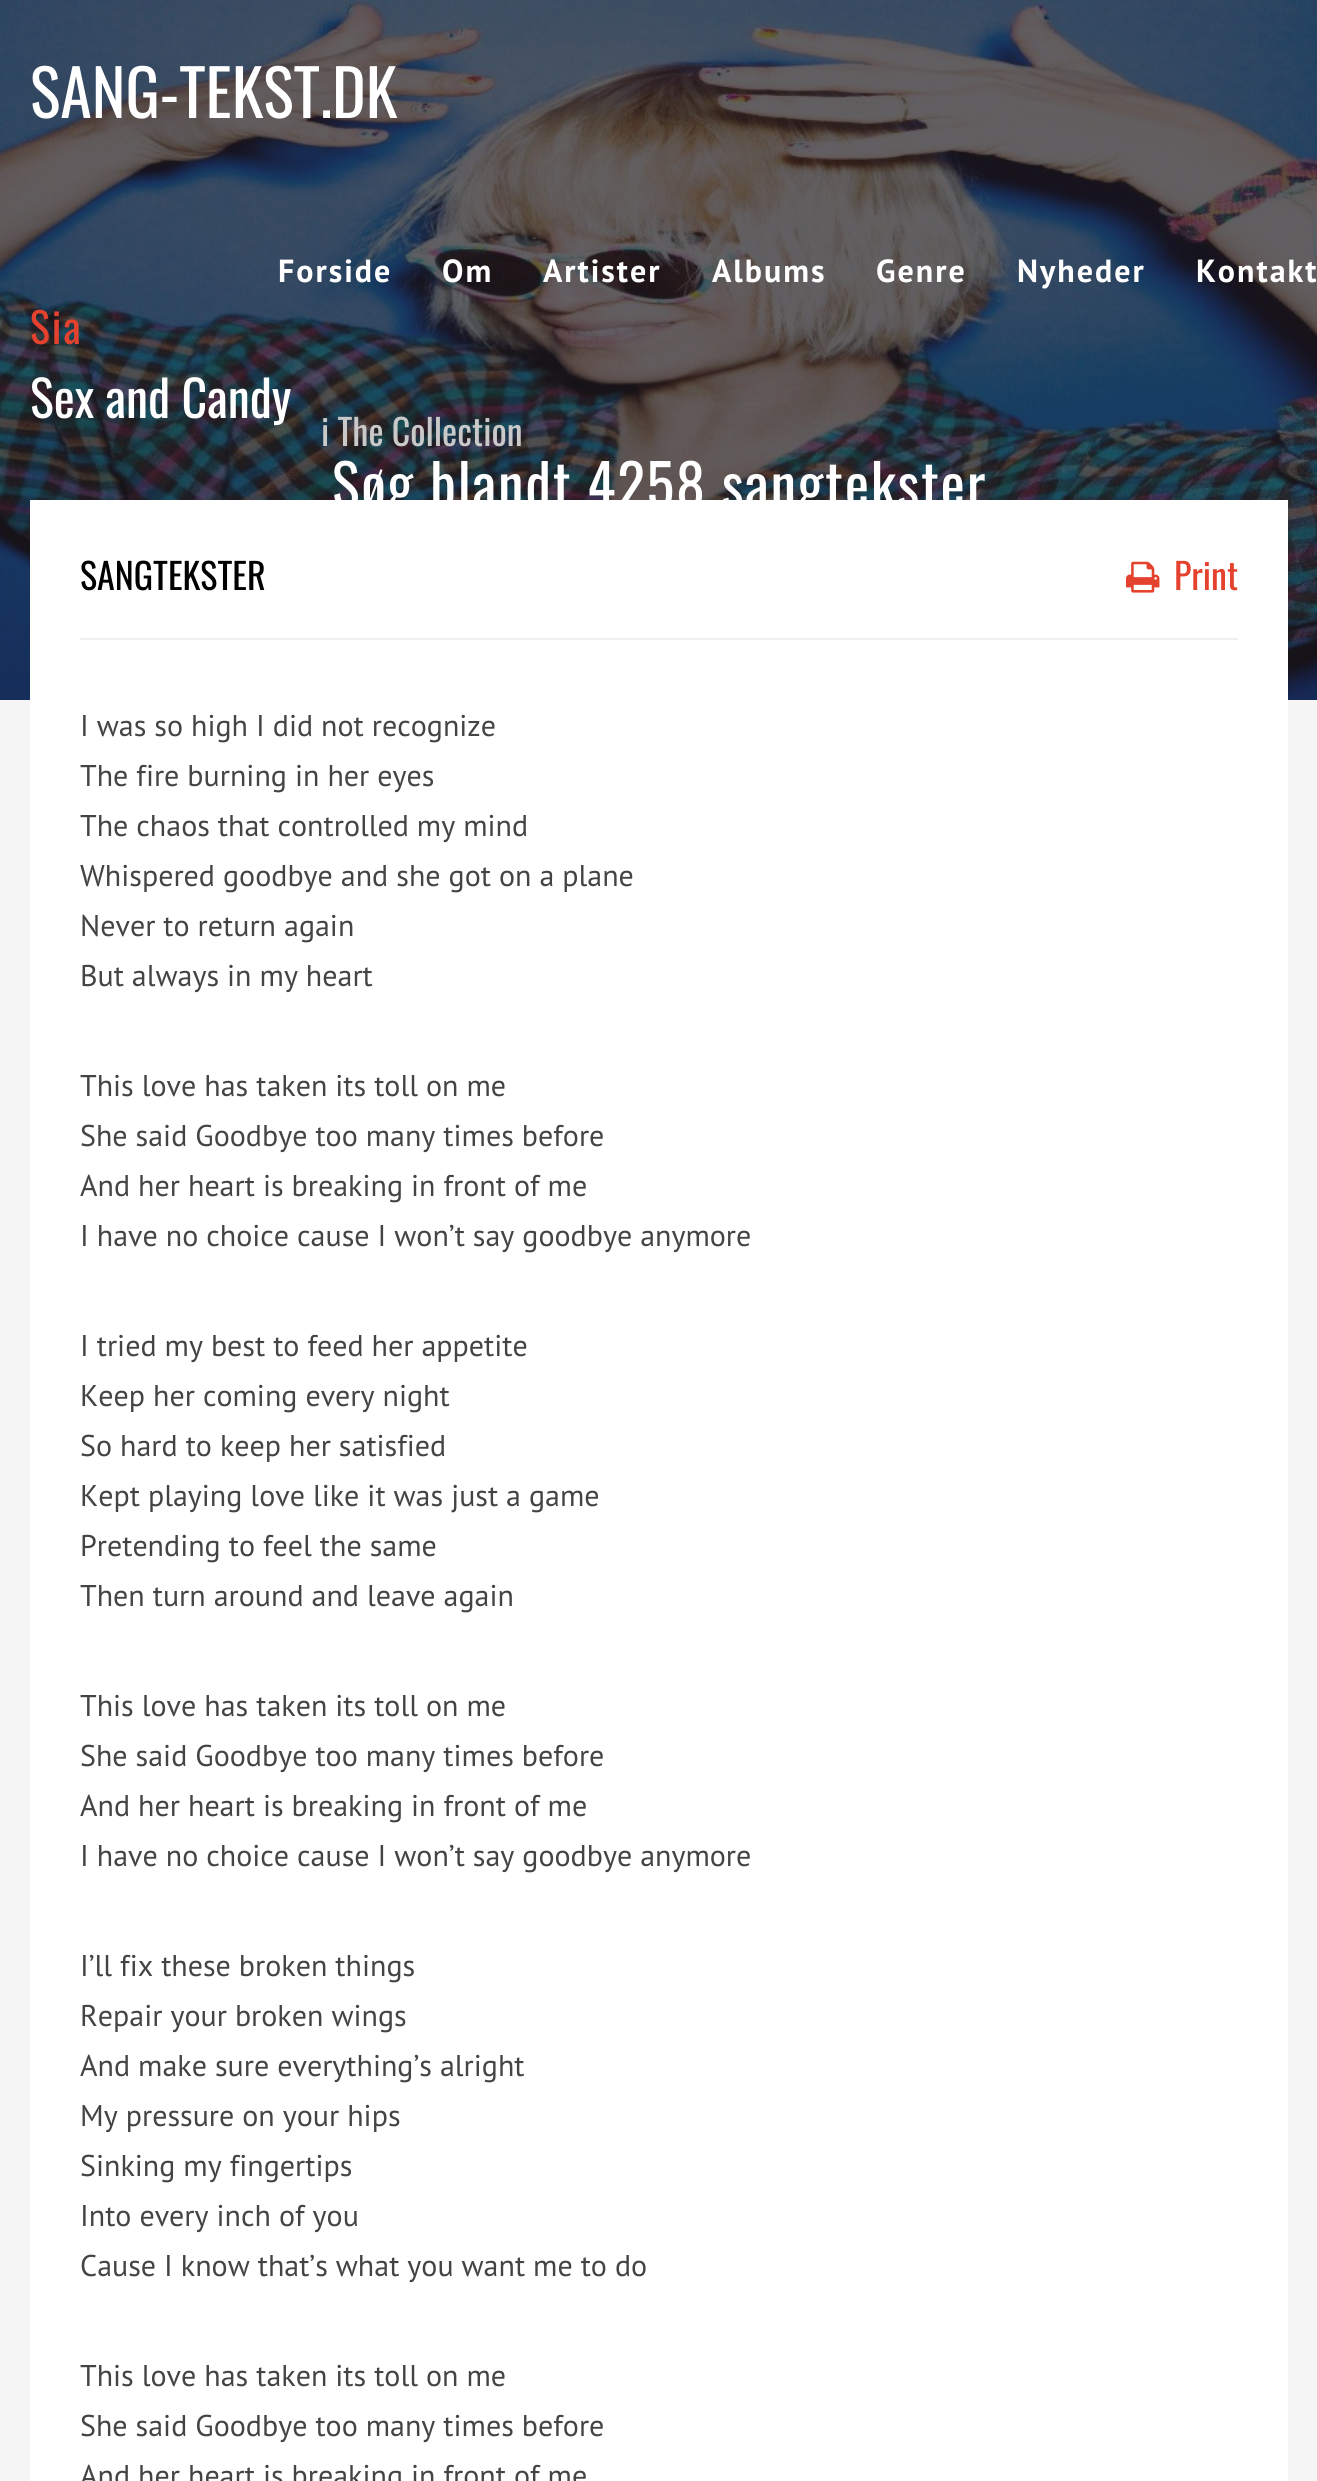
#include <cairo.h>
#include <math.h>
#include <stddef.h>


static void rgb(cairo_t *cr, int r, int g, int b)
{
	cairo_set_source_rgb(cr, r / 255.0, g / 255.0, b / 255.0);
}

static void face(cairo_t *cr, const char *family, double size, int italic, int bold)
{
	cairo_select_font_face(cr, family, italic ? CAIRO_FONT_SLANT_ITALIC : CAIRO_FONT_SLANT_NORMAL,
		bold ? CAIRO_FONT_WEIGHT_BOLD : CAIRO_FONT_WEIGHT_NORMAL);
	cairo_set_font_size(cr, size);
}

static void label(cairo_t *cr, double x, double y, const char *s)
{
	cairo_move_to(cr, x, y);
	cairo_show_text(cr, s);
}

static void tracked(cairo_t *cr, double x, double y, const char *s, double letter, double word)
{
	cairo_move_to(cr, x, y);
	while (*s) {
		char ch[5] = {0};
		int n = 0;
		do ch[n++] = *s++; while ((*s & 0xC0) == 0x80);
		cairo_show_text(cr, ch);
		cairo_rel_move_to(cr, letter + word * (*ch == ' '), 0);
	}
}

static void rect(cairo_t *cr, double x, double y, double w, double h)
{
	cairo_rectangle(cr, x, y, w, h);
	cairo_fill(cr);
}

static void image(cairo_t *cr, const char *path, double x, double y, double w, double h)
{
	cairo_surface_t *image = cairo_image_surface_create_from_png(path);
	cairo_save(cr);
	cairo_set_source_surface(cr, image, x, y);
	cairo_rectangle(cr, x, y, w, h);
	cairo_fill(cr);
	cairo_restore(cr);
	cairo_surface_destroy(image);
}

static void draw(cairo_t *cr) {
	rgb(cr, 245, 245, 245);
	cairo_paint(cr);
	image(cr, "image0.png", 0, 0, 1317, 700);
	face(cr, "Oswald", 64, 0, 0);
	rgb(cr, 255, 255, 255);
	label(cr, 30, 118, "SANG-TEKST.DK");
	face(cr, "PT Sans", 32, 0, 1);
	tracked(cr, 278, 282, "Forside", 2, 0);
	tracked(cr, 442, 282, "Om", 2, 0);
	tracked(cr, 543, 282, "Artister", 2, 0);
	tracked(cr, 712, 282, "Albums", 2, 0);
	tracked(cr, 876, 282, "Genre", 2, 0);
	tracked(cr, 1017, 282, "Nyheder", 2, 0);
	tracked(cr, 1196, 282, "Kontakt", 2, 0);
	face(cr, "Oswald", 42, 0, 0);
	rgb(cr, 228, 66, 46);
	tracked(cr, 30, 344, "Sia", 2, 0);
	face(cr, "Oswald", 50, 0, 0);
	rgb(cr, 255, 255, 255);
	label(cr, 30, 418, "Sex and Candy");
	face(cr, "Oswald", 36, 0, 0);
	rgb(cr, 201, 201, 201);
	label(cr, 321, 446, "i The Collection");
	face(cr, "Oswald", 58, 0, 0);
	rgb(cr, 255, 255, 255);
	tracked(cr, 332, 508, "Søg blandt 4258 sangtekster", 1.75, 0);
	rect(cr, 30, 500, 1258, 1981);
	rgb(cr, 240, 240, 240);
	rect(cr, 80, 638, 1158, 2);
	face(cr, "Oswald", 36, 0, 0);
	rgb(cr, 0, 0, 0);
	label(cr, 80, 590, "SANGTEKSTER");
	image(cr, "image1.png", 1126, 561, 34, 32);
	rgb(cr, 228, 66, 46);
	label(cr, 1174, 590, "Print");
	face(cr, "PT Sans", 30, 0, 0);
	rgb(cr, 68, 68, 68);
	label(cr, 80, 736, "I was so high I did not recognize");
	label(cr, 80, 786, "The fire burning in her eyes");
	label(cr, 80, 836, "The chaos that controlled my mind");
	label(cr, 80, 886, "Whispered goodbye and she got on a plane");
	label(cr, 80, 936, "Never to return again");
	label(cr, 80, 986, "But always in my heart");
	label(cr, 80, 1096, "This love has taken its toll on me");
	label(cr, 80, 1146, "She said Goodbye too many times before");
	label(cr, 80, 1196, "And her heart is breaking in front of me");
	label(cr, 80, 1246, "I have no choice cause I won’t say goodbye anymore");
	label(cr, 80, 1356, "I tried my best to feed her appetite");
	label(cr, 80, 1406, "Keep her coming every night");
	label(cr, 80, 1456, "So hard to keep her satisfied");
	label(cr, 80, 1506, "Kept playing love like it was just a game");
	label(cr, 80, 1556, "Pretending to feel the same");
	label(cr, 80, 1606, "Then turn around and leave again");
	label(cr, 80, 1716, "This love has taken its toll on me");
	label(cr, 80, 1766, "She said Goodbye too many times before");
	label(cr, 80, 1816, "And her heart is breaking in front of me");
	label(cr, 80, 1866, "I have no choice cause I won’t say goodbye anymore");
	label(cr, 80, 1976, "I’ll fix these broken things");
	label(cr, 80, 2026, "Repair your broken wings");
	label(cr, 80, 2076, "And make sure everything’s alright");
	label(cr, 80, 2126, "My pressure on your hips");
	label(cr, 80, 2176, "Sinking my fingertips");
	label(cr, 80, 2226, "Into every inch of you");
	label(cr, 80, 2276, "Cause I know that’s what you want me to do");
	label(cr, 80, 2386, "This love has taken its toll on me");
	label(cr, 80, 2436, "She said Goodbye too many times before");
	label(cr, 80, 2486, "And her heart is breaking in front of me");
}

int main(void) {
	cairo_surface_t *surface = cairo_image_surface_create(CAIRO_FORMAT_RGB24, 1317, 2481);
	cairo_t *cr = cairo_create(surface);
	cairo_font_options_t *options = cairo_font_options_create();
	cairo_font_options_set_hint_metrics(options, CAIRO_HINT_METRICS_OFF);
	cairo_font_options_set_hint_style(options, CAIRO_HINT_STYLE_NONE);
	cairo_set_font_options(cr, options);
	cairo_set_miter_limit(cr, 4);
	draw(cr);
	cairo_surface_write_to_png(surface, "render.png");
	cairo_font_options_destroy(options);
	cairo_destroy(cr);
	cairo_surface_destroy(surface);
	return 0;
}
